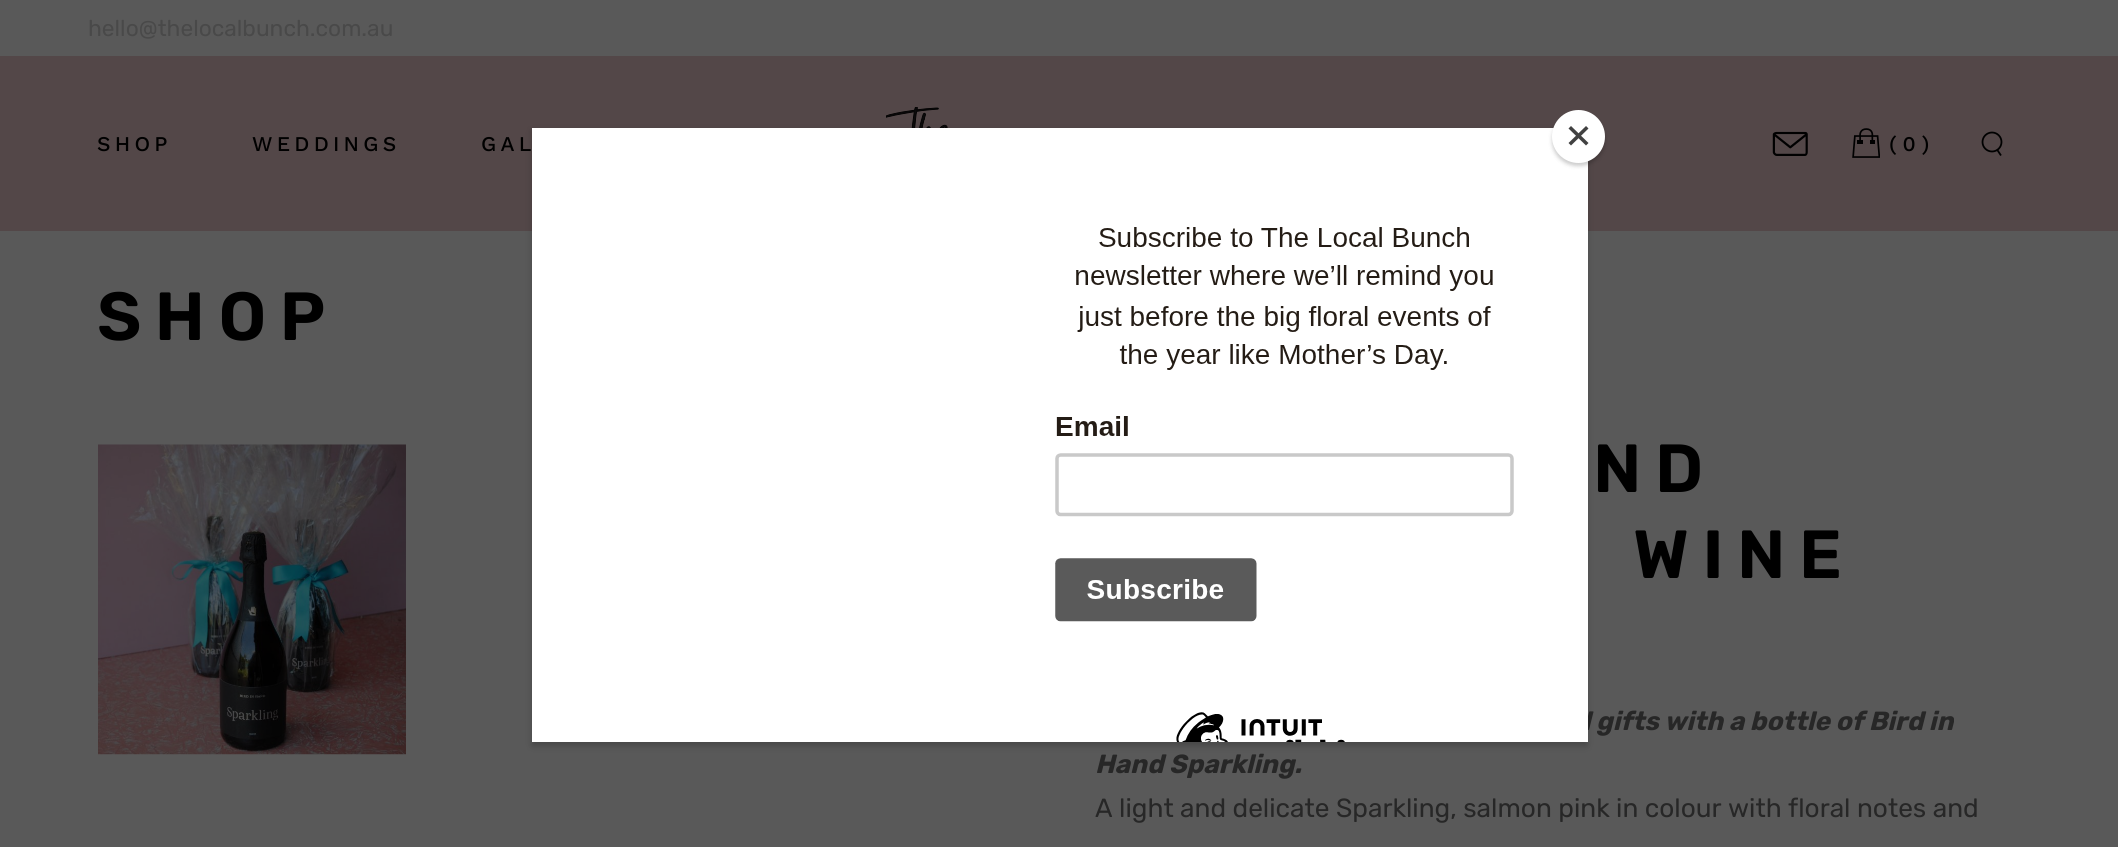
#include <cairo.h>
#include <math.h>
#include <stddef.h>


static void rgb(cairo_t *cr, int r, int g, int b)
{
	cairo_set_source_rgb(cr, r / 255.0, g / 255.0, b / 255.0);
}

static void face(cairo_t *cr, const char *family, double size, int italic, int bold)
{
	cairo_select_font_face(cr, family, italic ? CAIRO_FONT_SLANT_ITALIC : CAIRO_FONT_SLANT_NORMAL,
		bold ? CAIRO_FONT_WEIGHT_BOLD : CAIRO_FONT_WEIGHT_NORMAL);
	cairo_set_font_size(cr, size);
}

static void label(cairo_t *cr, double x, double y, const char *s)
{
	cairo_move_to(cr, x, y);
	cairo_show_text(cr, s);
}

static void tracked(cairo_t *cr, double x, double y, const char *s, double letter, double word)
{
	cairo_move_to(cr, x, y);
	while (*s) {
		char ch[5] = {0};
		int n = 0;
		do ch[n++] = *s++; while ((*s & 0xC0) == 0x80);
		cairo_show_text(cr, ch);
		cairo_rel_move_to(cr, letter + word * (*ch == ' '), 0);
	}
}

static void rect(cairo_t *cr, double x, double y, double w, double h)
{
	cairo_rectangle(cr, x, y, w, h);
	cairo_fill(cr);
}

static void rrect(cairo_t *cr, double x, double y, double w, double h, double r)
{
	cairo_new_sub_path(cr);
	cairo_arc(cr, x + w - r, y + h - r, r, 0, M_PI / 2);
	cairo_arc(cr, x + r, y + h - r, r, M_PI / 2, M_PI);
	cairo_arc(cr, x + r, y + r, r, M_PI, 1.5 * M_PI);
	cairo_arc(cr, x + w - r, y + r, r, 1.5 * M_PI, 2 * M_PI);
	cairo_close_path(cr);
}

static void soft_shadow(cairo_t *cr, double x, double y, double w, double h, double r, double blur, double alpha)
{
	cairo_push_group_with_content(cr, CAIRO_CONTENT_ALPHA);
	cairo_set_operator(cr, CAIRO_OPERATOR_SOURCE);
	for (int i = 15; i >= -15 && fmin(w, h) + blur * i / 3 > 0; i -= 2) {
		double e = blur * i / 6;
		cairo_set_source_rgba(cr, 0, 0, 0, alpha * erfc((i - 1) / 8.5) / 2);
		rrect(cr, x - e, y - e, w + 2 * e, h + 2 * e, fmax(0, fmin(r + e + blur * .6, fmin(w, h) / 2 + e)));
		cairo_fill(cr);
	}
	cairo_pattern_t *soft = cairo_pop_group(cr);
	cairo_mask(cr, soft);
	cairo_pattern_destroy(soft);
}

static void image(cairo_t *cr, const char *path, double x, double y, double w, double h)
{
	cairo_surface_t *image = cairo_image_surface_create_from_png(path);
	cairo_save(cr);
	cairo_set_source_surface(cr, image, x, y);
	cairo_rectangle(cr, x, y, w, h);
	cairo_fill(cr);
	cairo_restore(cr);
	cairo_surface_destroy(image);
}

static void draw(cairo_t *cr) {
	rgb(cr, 89, 89, 89);
	cairo_paint(cr);
	face(cr, "Rubik", 22.75, 0, 0);
	rgb(cr, 73, 73, 73);
	label(cr, 88, 36, "hello@thelocalbunch.com.au");
	rgb(cr, 83, 71, 72);
	rect(cr, 0, 56, 2118, 175);
	image(cr, "image0.png", 886, 107, 62, 21);
	face(cr, "Work Sans Medium", 21, 0, 0);
	rgb(cr, 0, 0, 0);
	tracked(cr, 97, 151, "SHOP", 4.25, 0);
	tracked(cr, 252, 151, "WEDDINGS", 4.25, 0);
	tracked(cr, 481, 151, "GAL", 4.25, 0);
	image(cr, "image1.png", 1772, 131, 36, 25);
	image(cr, "image2.png", 1852, 128, 28, 30);
	tracked(cr, 1889, 151, "(0)", 6, 0);
	cairo_new_path(cr);
	cairo_arc(cr, 1992, 142, 9.5, 0, 2 * M_PI);
	cairo_set_line_width(cr, 1.8);
	cairo_stroke(cr);
	cairo_new_path(cr);
	cairo_move_to(cr, 1997, 149.5);
	cairo_line_to(cr, 2001, 155.5);
	cairo_stroke(cr);
	face(cr, "Rubik SemiBold", 68, 0, 0);
	tracked(cr, 97, 340, "SHOP", 13.5, 0);
	image(cr, "image3.png", 98, 444, 308, 311);
	tracked(cr, 1593, 492, "ND", 13.5, 0);
	tracked(cr, 1633, 578, "WINE", 13.5, 0);
	face(cr, "Rubik", 26.25, 1, 1);
	rgb(cr, 39, 39, 39);
	label(cr, 1583, 730, "l gifts with a bottle of Bird in");
	label(cr, 1095, 773, "Hand Sparkling.");
	face(cr, "Rubik", 26.25, 0, 0);
	label(cr, 1095, 817, "A light and delicate Sparkling, salmon pink in colour with floral notes and");
	rgb(cr, 0, 0, 0);
	soft_shadow(cr, 532, 131, 1055, 615, 0, 3.5, 0.2);
	image(cr, "image4.png", 532, 128, 1056, 614);
	soft_shadow(cr, 1552, 114, 53, 52, 26, 2, 0.2);
	rgb(cr, 255, 255, 255);
	cairo_arc(cr, 1578.5, 136.5, 26.5, 0, 2 * M_PI);
	cairo_fill(cr);
	rgb(cr, 65, 65, 65);
	cairo_new_path(cr);
	cairo_move_to(cr, 1586, 126);
	cairo_line_to(cr, 1588.5, 128.5);
	cairo_line_to(cr, 1571, 145.5);
	cairo_line_to(cr, 1568.5, 143);
	cairo_close_path(cr);
	cairo_fill(cr);
	cairo_new_path(cr);
	cairo_move_to(cr, 1568.5, 128.5);
	cairo_line_to(cr, 1571, 126);
	cairo_line_to(cr, 1588.5, 143);
	cairo_line_to(cr, 1586, 145.5);
	cairo_close_path(cr);
	cairo_fill(cr);
}

int main(void) {
	cairo_surface_t *surface = cairo_image_surface_create(CAIRO_FORMAT_RGB24, 2118, 847);
	cairo_t *cr = cairo_create(surface);
	cairo_font_options_t *options = cairo_font_options_create();
	cairo_font_options_set_hint_metrics(options, CAIRO_HINT_METRICS_OFF);
	cairo_font_options_set_hint_style(options, CAIRO_HINT_STYLE_NONE);
	cairo_set_font_options(cr, options);
	cairo_set_miter_limit(cr, 4);
	draw(cr);
	cairo_surface_write_to_png(surface, "render.png");
	cairo_font_options_destroy(options);
	cairo_destroy(cr);
	cairo_surface_destroy(surface);
	return 0;
}
